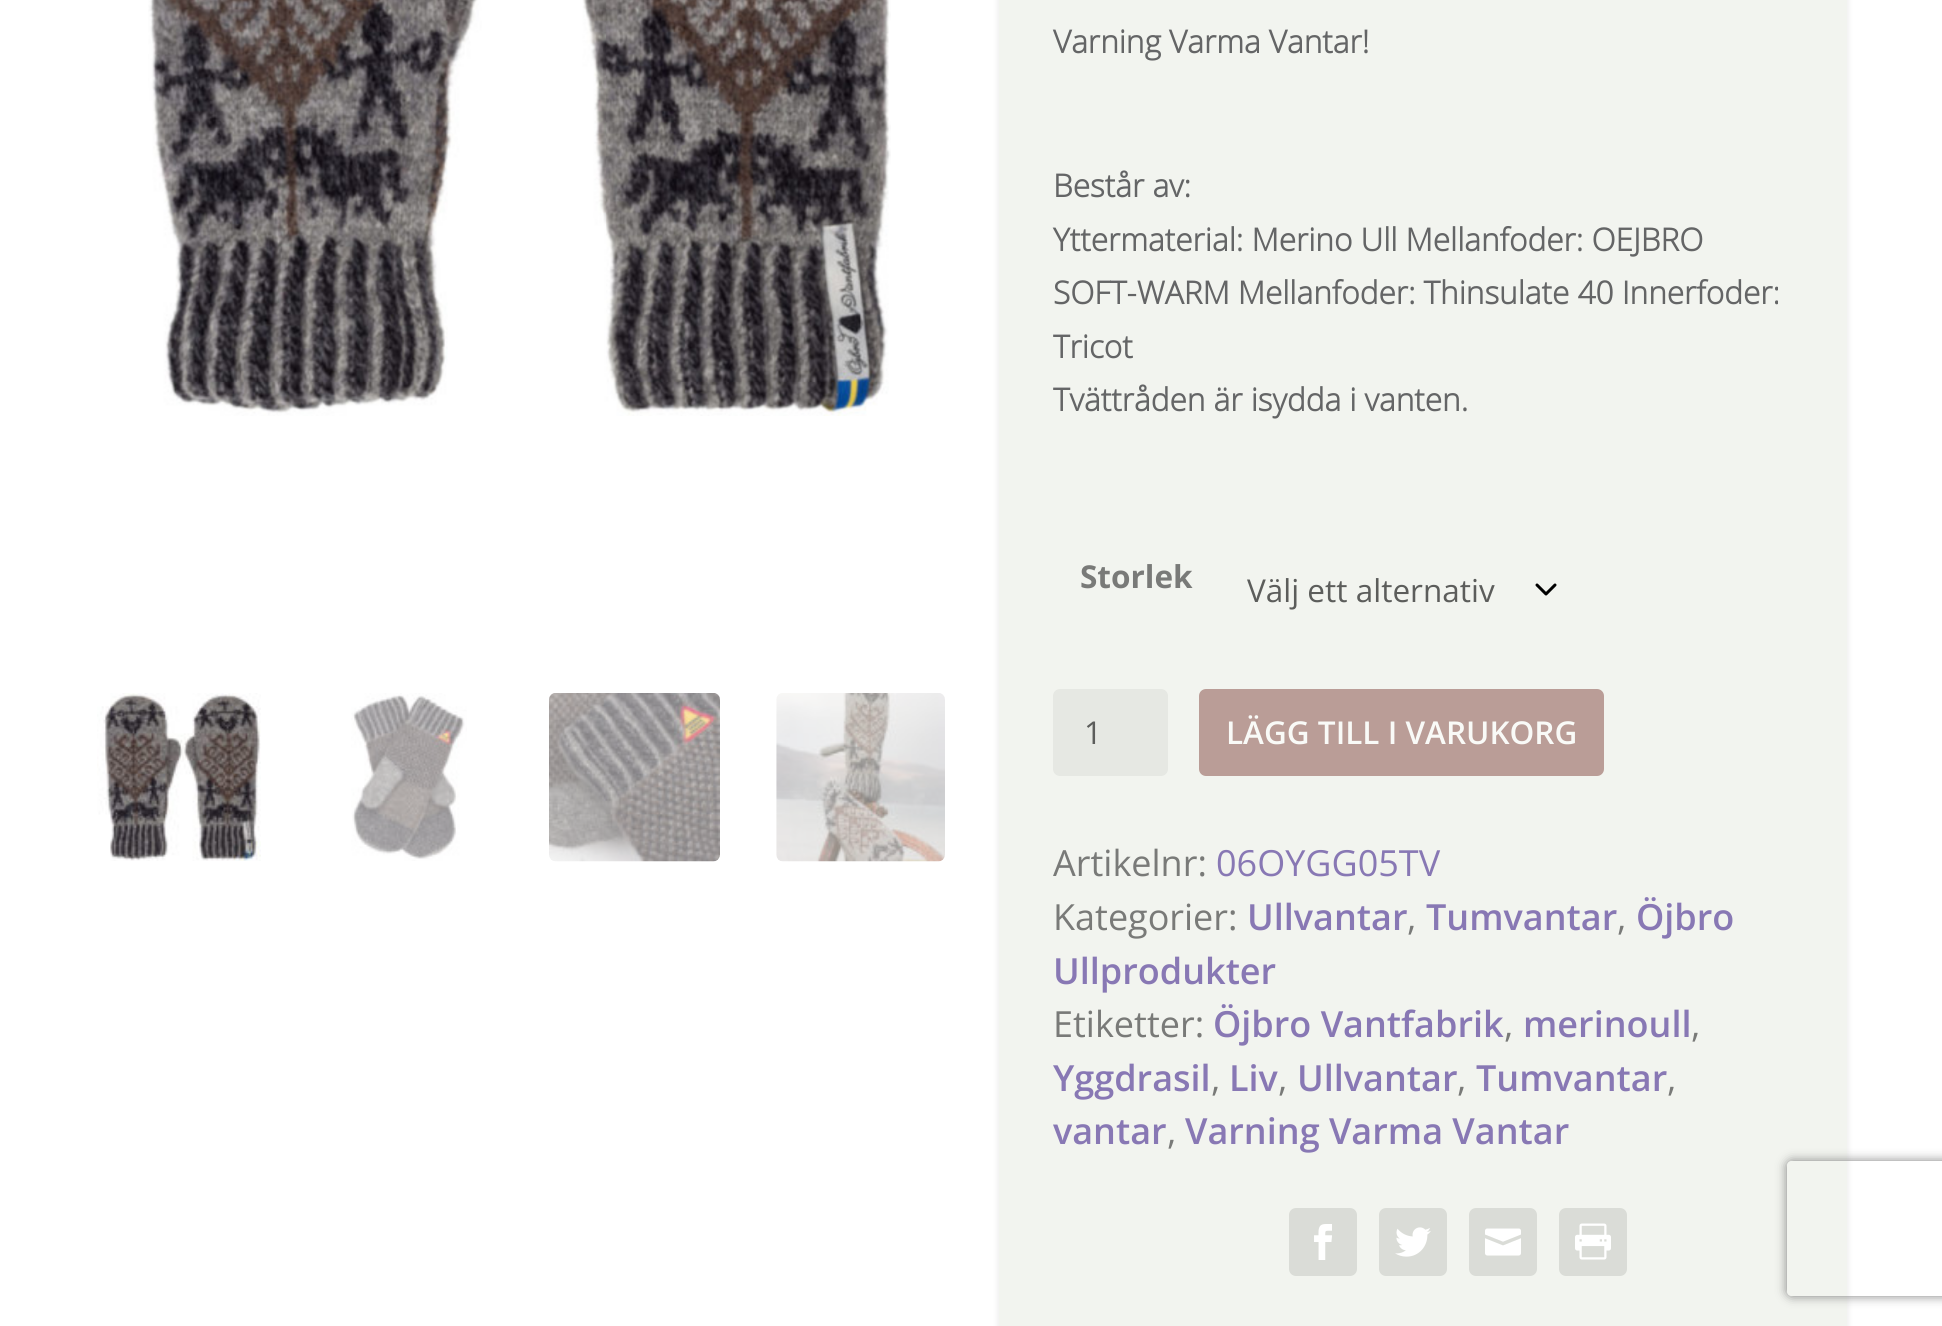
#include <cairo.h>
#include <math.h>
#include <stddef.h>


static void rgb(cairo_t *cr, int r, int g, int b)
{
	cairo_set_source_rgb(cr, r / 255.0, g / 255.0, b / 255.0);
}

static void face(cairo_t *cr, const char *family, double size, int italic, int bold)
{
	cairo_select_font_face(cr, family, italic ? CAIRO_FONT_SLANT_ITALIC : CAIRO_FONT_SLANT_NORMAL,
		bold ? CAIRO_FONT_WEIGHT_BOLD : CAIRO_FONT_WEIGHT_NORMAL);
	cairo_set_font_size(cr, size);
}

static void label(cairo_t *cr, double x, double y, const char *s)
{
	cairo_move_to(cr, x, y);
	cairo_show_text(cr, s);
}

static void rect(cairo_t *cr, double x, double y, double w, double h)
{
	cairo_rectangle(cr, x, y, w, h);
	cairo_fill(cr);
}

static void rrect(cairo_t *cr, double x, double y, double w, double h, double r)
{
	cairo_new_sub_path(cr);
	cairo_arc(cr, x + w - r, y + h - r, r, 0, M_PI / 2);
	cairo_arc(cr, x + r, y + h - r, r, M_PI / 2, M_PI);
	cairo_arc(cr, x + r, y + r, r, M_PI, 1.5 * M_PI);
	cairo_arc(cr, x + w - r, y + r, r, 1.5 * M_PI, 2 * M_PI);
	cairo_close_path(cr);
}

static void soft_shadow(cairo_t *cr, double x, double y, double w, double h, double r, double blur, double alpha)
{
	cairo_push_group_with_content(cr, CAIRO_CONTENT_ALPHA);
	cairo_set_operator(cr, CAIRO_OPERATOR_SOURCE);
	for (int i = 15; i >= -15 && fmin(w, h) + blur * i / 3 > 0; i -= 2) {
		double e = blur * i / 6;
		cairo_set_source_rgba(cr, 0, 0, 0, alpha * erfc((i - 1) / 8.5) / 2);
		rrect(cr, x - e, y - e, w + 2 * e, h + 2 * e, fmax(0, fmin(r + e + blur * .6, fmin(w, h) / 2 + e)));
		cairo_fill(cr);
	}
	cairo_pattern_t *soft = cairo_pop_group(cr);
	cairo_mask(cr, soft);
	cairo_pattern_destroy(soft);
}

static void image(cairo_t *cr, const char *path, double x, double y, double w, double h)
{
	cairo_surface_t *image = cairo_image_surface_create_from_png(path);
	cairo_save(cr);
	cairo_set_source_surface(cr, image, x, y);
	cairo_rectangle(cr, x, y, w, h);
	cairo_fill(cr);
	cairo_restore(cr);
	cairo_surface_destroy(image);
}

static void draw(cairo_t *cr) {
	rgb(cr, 255, 255, 255);
	cairo_paint(cr);
	image(cr, "image0.png", 148, 0, 743, 416);
	image(cr, "image1.png", 97, 693, 164, 168);
	image(cr, "image2.png", 351, 693, 116, 168);
	image(cr, "image3.png", 549, 693, 171, 169);
	image(cr, "image4.png", 776, 693, 169, 169);
	rgb(cr, 0, 0, 0);
	soft_shadow(cr, 999, -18, 848, 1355, 7, 3.5, 0.1);
	rgb(cr, 242, 244, 239);
	rect(cr, 999, 0, 848, 1326);
	face(cr, "Open Sans", 31.5, 0, 1);
	rgb(cr, 100, 101, 102);
	label(cr, 1053, 53, "Varning Varma Vantar!");
	label(cr, 1053, 197, "Består av:");
	label(cr, 1053, 251, "Yttermaterial: Merino Ull Mellanfoder: OEJBRO");
	label(cr, 1053, 304, "SOFT-WARM Mellanfoder: Thinsulate 40 Innerfoder:");
	label(cr, 1053, 358, "Tricot");
	label(cr, 1053, 411, "Tvättråden är isydda i vanten.");
	face(cr, "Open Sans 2", 31.5, 0, 1);
	rgb(cr, 121, 122, 120);
	label(cr, 1080, 588, "Storlek");
	cairo_new_path(cr);
	cairo_move_to(cr, 1537, 585);
	cairo_line_to(cr, 1546, 594);
	cairo_line_to(cr, 1555, 585);
	rgb(cr, 0, 0, 0);
	cairo_set_line_width(cr, 3);
	cairo_set_line_cap(cr, CAIRO_LINE_CAP_ROUND);
	cairo_set_line_join(cr, CAIRO_LINE_JOIN_ROUND);
	cairo_stroke(cr);
	face(cr, "Open Sans", 31.5, 0, 0);
	rgb(cr, 92, 93, 91);
	label(cr, 1247, 602, "Välj ett alternativ");
	rgb(cr, 230, 232, 227);
	rrect(cr, 1053, 689, 115, 87, 7);
	cairo_fill(cr);
	rgb(cr, 92, 93, 91);
	label(cr, 1084, 744, "1");
	rgb(cr, 186, 157, 151);
	rrect(cr, 1199, 689, 405, 87, 7);
	cairo_fill(cr);
	face(cr, "Open Sans SemiBold", 31.5, 0, 0);
	rgb(cr, 249, 250, 247);
	label(cr, 1226, 744, "LÄGG TILL I VARUKORG");
	face(cr, "Open Sans", 36, 0, 0);
	rgb(cr, 121, 122, 120);
	label(cr, 1053, 876, "Artikelnr:");
	rgb(cr, 136, 120, 180);
	label(cr, 1216, 876, "06OYGG05TV");
	rgb(cr, 121, 122, 120);
	label(cr, 1053, 930, "Kategorier:");
	face(cr, "Open Sans SemiBold", 36, 0, 0);
	rgb(cr, 136, 120, 180);
	label(cr, 1247, 930, "Ullvantar");
	face(cr, "Open Sans", 36, 0, 0);
	rgb(cr, 121, 122, 120);
	label(cr, 1407, 930, ",");
	face(cr, "Open Sans SemiBold", 36, 0, 0);
	rgb(cr, 136, 120, 180);
	label(cr, 1426, 930, "Tumvantar");
	face(cr, "Open Sans", 36, 0, 0);
	rgb(cr, 121, 122, 120);
	label(cr, 1617, 930, ",");
	face(cr, "Open Sans SemiBold", 36, 0, 0);
	rgb(cr, 136, 120, 180);
	label(cr, 1636, 930, "Öjbro");
	label(cr, 1053, 984, "Ullprodukter");
	face(cr, "Open Sans", 36, 0, 0);
	rgb(cr, 121, 122, 120);
	label(cr, 1053, 1037, "Etiketter:");
	face(cr, "Open Sans SemiBold", 36, 0, 0);
	rgb(cr, 136, 120, 180);
	label(cr, 1213, 1037, "Öjbro Vantfabrik");
	face(cr, "Open Sans", 36, 0, 0);
	rgb(cr, 121, 122, 120);
	label(cr, 1504, 1037, ",");
	face(cr, "Open Sans SemiBold", 36, 0, 0);
	rgb(cr, 136, 120, 180);
	label(cr, 1523, 1037, "merinoull");
	face(cr, "Open Sans", 36, 0, 0);
	rgb(cr, 121, 122, 120);
	label(cr, 1691, 1037, ",");
	face(cr, "Open Sans SemiBold", 36, 0, 0);
	rgb(cr, 136, 120, 180);
	label(cr, 1053, 1091, "Yggdrasil");
	face(cr, "Open Sans", 36, 0, 0);
	rgb(cr, 121, 122, 120);
	label(cr, 1211, 1091, ",");
	face(cr, "Open Sans SemiBold", 36, 0, 0);
	rgb(cr, 136, 120, 180);
	label(cr, 1229, 1091, "Liv");
	face(cr, "Open Sans", 36, 0, 0);
	rgb(cr, 121, 122, 120);
	label(cr, 1278, 1091, ",");
	face(cr, "Open Sans SemiBold", 36, 0, 0);
	rgb(cr, 136, 120, 180);
	label(cr, 1297, 1091, "Ullvantar");
	face(cr, "Open Sans", 36, 0, 0);
	rgb(cr, 121, 122, 120);
	label(cr, 1457, 1091, ",");
	face(cr, "Open Sans SemiBold", 36, 0, 0);
	rgb(cr, 136, 120, 180);
	label(cr, 1476, 1091, "Tumvantar");
	face(cr, "Open Sans", 36, 0, 0);
	rgb(cr, 121, 122, 120);
	label(cr, 1667, 1091, ",");
	face(cr, "Open Sans SemiBold", 36, 0, 0);
	rgb(cr, 136, 120, 180);
	label(cr, 1053, 1144, "vantar");
	face(cr, "Open Sans", 36, 0, 0);
	rgb(cr, 121, 122, 120);
	label(cr, 1167, 1144, ",");
	face(cr, "Open Sans SemiBold", 36, 0, 0);
	rgb(cr, 136, 120, 180);
	label(cr, 1185, 1144, "Varning Varma Vantar");
	rgb(cr, 218, 220, 215);
	rrect(cr, 1289, 1208, 68, 68, 7);
	cairo_fill(cr);
	image(cr, "image5.png", 1314, 1224, 18, 36);
	rrect(cr, 1379, 1208, 68, 68, 7);
	cairo_fill(cr);
	image(cr, "image6.png", 1395, 1227, 36, 30);
	rrect(cr, 1469, 1208, 68, 68, 7);
	cairo_fill(cr);
	image(cr, "image7.png", 1485, 1228, 36, 28);
	rrect(cr, 1559, 1208, 68, 68, 7);
	cairo_fill(cr);
	image(cr, "image8.png", 1575, 1223, 36, 37);
	cairo_save(cr);
	cairo_set_fill_rule(cr, CAIRO_FILL_RULE_EVEN_ODD);
	cairo_new_path(cr);
	cairo_move_to(cr, 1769, 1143);
	cairo_line_to(cr, 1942, 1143);
	cairo_line_to(cr, 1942, 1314);
	cairo_line_to(cr, 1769, 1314);
	cairo_close_path(cr);
	cairo_move_to(cr, 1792, 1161);
	cairo_line_to(cr, 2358, 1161);
	cairo_curve_to(cr, 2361, 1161, 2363, 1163, 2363, 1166);
	cairo_line_to(cr, 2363, 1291);
	cairo_curve_to(cr, 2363, 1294, 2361, 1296, 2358, 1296);
	cairo_line_to(cr, 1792, 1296);
	cairo_curve_to(cr, 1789, 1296, 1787, 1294, 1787, 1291);
	cairo_line_to(cr, 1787, 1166);
	cairo_curve_to(cr, 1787, 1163, 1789, 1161, 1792, 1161);
	cairo_close_path(cr);
	cairo_clip(cr);
	rgb(cr, 128, 128, 128);
	soft_shadow(cr, 1787, 1161, 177, 135, 5, 5.5, 1);
	cairo_restore(cr);
}

int main(void) {
	cairo_surface_t *surface = cairo_image_surface_create(CAIRO_FORMAT_RGB24, 1942, 1326);
	cairo_t *cr = cairo_create(surface);
	cairo_font_options_t *options = cairo_font_options_create();
	cairo_font_options_set_hint_metrics(options, CAIRO_HINT_METRICS_OFF);
	cairo_font_options_set_hint_style(options, CAIRO_HINT_STYLE_NONE);
	cairo_set_font_options(cr, options);
	cairo_set_miter_limit(cr, 4);
	draw(cr);
	cairo_surface_write_to_png(surface, "render.png");
	cairo_font_options_destroy(options);
	cairo_destroy(cr);
	cairo_surface_destroy(surface);
	return 0;
}
